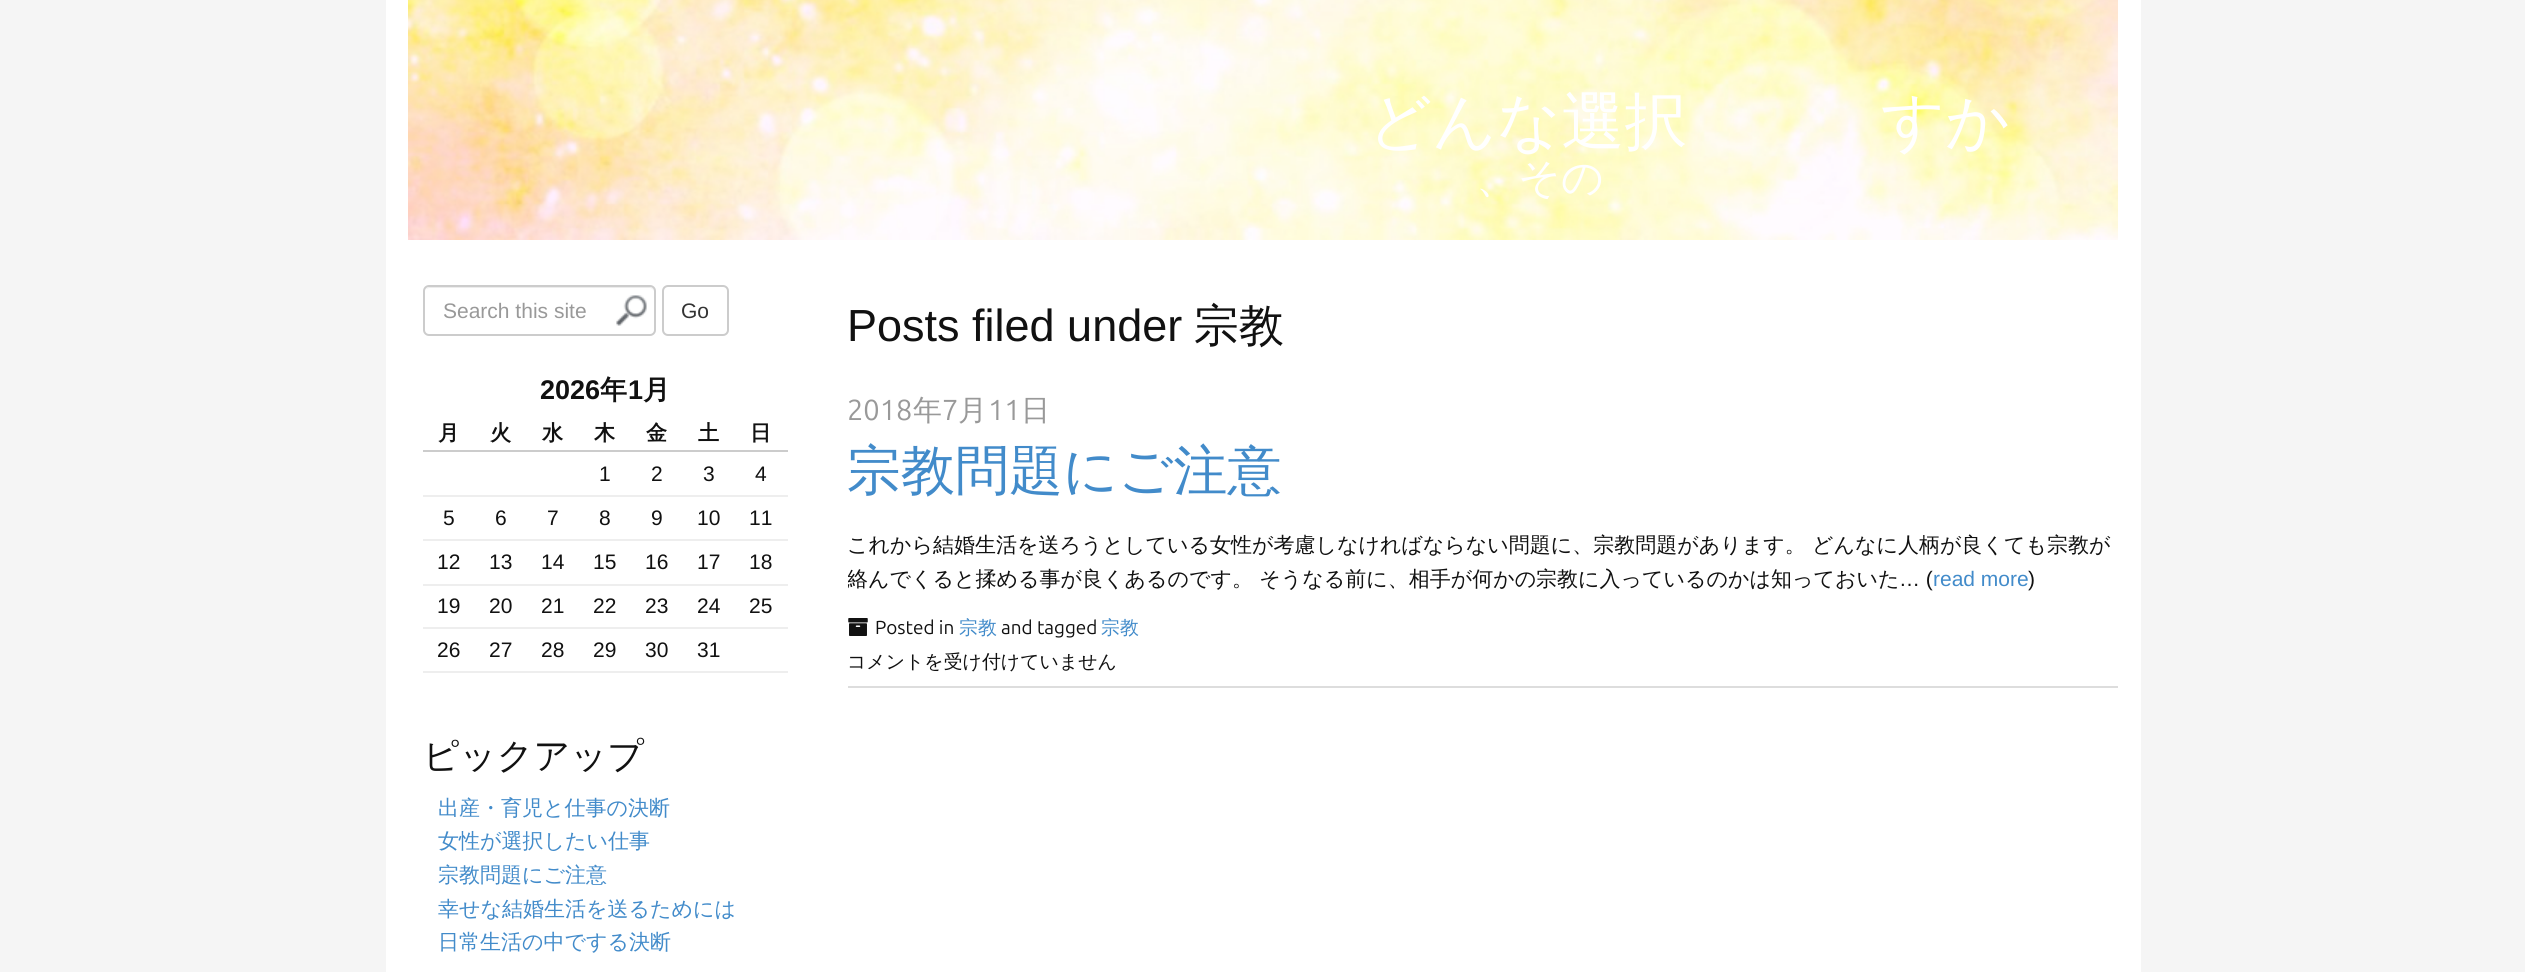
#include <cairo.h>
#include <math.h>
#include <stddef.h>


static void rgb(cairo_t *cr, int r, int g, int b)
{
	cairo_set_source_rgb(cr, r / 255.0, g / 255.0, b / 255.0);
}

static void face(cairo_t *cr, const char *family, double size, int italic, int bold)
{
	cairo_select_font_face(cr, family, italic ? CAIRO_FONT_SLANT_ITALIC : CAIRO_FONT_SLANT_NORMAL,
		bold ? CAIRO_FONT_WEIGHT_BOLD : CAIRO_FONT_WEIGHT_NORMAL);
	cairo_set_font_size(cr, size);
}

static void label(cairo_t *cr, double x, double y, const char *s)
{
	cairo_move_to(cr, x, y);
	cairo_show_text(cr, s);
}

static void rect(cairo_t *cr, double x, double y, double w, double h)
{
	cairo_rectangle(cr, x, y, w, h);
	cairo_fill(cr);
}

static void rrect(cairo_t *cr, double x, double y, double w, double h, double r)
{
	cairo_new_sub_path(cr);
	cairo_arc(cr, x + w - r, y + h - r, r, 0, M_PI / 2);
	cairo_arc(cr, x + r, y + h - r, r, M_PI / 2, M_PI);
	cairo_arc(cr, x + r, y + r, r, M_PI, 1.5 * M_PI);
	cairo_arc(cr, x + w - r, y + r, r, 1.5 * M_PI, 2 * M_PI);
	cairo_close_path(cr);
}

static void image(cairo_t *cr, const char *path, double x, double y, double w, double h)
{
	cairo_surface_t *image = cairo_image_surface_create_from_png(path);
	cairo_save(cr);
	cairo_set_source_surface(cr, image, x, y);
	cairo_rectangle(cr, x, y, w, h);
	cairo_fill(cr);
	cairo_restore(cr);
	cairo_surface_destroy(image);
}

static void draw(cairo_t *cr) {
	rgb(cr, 245, 245, 245);
	cairo_paint(cr);
	rgb(cr, 255, 255, 255);
	rect(cr, 386, 0, 1755, 972);
	image(cr, "image0.png", 408, 0, 1710, 240);
	face(cr, "WenQuanYi Zen Hei Medium", 63, 0, 0);
	label(cr, 1368, 143, "どんな選択");
	label(cr, 1881, 143, "すか");
	face(cr, "WenQuanYi Zen Hei Medium", 42, 0, 0);
	label(cr, 1476, 192, "、その");
	image(cr, "image1.png", 616, 295, 31, 31);
	rgb(cr, 236, 236, 236);
	cairo_new_path(cr);
	cairo_move_to(cr, 429, 288);
	cairo_line_to(cr, 650, 288);
	cairo_curve_to(cr, 652, 288, 654, 290, 654, 292);
	cairo_curve_to(cr, 654, 289, 652, 287, 649, 287);
	cairo_line_to(cr, 430, 287);
	cairo_curve_to(cr, 428, 287, 427, 288, 426, 289);
	cairo_close_path(cr);
	cairo_fill(cr);
	rrect(cr, 424, 286, 231, 49, 5);
	rgb(cr, 204, 204, 204);
	cairo_stroke(cr);
	face(cr, "Liberation Sans", 21, 0, 0);
	rgb(cr, 153, 153, 153);
	label(cr, 443, 318, "Search this site");
	rrect(cr, 663, 286, 65, 49, 5);
	rgb(cr, 204, 204, 204);
	cairo_stroke(cr);
	rgb(cr, 51, 51, 51);
	label(cr, 681, 318, "Go");
	face(cr, "Liberation Sans", 27, 0, 1);
	rgb(cr, 17, 17, 17);
	label(cr, 540, 399, "2026");
	face(cr, "WenQuanYi Zen Hei", 27, 0, 1);
	label(cr, 600, 399, "年");
	face(cr, "Liberation Sans", 27, 0, 1);
	label(cr, 628, 399, "1");
	face(cr, "WenQuanYi Zen Hei", 27, 0, 1);
	label(cr, 643, 399, "月");
	rgb(cr, 204, 204, 204);
	rect(cr, 423, 450, 365, 2);
	face(cr, "WenQuanYi Zen Hei", 21, 0, 1);
	rgb(cr, 17, 17, 17);
	label(cr, 438, 440, "月");
	label(cr, 490, 440, "火");
	label(cr, 542, 440, "水");
	label(cr, 594, 440, "木");
	label(cr, 646, 440, "金");
	label(cr, 698, 440, "土");
	label(cr, 750, 440, "日");
	rgb(cr, 238, 238, 238);
	rect(cr, 423, 495, 365, 2);
	face(cr, "Liberation Sans", 21, 0, 0);
	rgb(cr, 17, 17, 17);
	label(cr, 599, 481, "1");
	label(cr, 651, 481, "2");
	label(cr, 703, 481, "3");
	label(cr, 755, 481, "4");
	rgb(cr, 238, 238, 238);
	rect(cr, 423, 539, 365, 2);
	rgb(cr, 17, 17, 17);
	label(cr, 443, 525, "5");
	label(cr, 495, 525, "6");
	label(cr, 547, 525, "7");
	label(cr, 599, 525, "8");
	label(cr, 651, 525, "9");
	label(cr, 697, 525, "10");
	label(cr, 749, 525, "11");
	rgb(cr, 238, 238, 238);
	rect(cr, 423, 584, 365, 2);
	rgb(cr, 17, 17, 17);
	label(cr, 437, 569, "12");
	label(cr, 489, 569, "13");
	label(cr, 541, 569, "14");
	label(cr, 593, 569, "15");
	label(cr, 645, 569, "16");
	label(cr, 697, 569, "17");
	label(cr, 749, 569, "18");
	rgb(cr, 238, 238, 238);
	rect(cr, 423, 627, 365, 2);
	rgb(cr, 17, 17, 17);
	label(cr, 437, 613, "19");
	label(cr, 489, 613, "20");
	label(cr, 541, 613, "21");
	label(cr, 593, 613, "22");
	label(cr, 645, 613, "23");
	label(cr, 697, 613, "24");
	label(cr, 749, 613, "25");
	rgb(cr, 238, 238, 238);
	rect(cr, 423, 671, 365, 2);
	rgb(cr, 17, 17, 17);
	label(cr, 437, 657, "26");
	label(cr, 489, 657, "27");
	label(cr, 541, 657, "28");
	label(cr, 593, 657, "29");
	label(cr, 645, 657, "30");
	label(cr, 697, 657, "31");
	face(cr, "WenQuanYi Zen Hei Medium", 36, 0, 0);
	label(cr, 423, 768, "ピックアップ");
	face(cr, "WenQuanYi Zen Hei Medium", 21, 0, 0);
	rgb(cr, 66, 139, 202);
	label(cr, 438, 815, "出産・育児と仕事の決断");
	label(cr, 438, 848, "女性が選択したい仕事");
	label(cr, 438, 882, "宗教問題にご注意");
	label(cr, 438, 916, "幸せな結婚生活を送るためには");
	label(cr, 438, 949, "日常生活の中でする決断");
	face(cr, "Liberation Sans", 45, 0, 0);
	rgb(cr, 17, 17, 17);
	label(cr, 847, 341, "Posts filed under");
	face(cr, "WenQuanYi Zen Hei Medium", 45, 0, 0);
	label(cr, 1194, 341, "宗教");
	rgb(cr, 221, 221, 221);
	rect(cr, 848, 686, 1270, 2);
	face(cr, "Ubuntu", 29, 0, 0);
	rgb(cr, 153, 153, 153);
	label(cr, 847, 420, "2018");
	face(cr, "WenQuanYi Zen Hei Medium", 29, 0, 0);
	label(cr, 913, 420, "年");
	face(cr, "Ubuntu", 29, 0, 0);
	label(cr, 942, 420, "7");
	face(cr, "WenQuanYi Zen Hei Medium", 29, 0, 0);
	label(cr, 958, 420, "月");
	face(cr, "Ubuntu", 29, 0, 0);
	label(cr, 988, 420, "11");
	face(cr, "WenQuanYi Zen Hei Medium", 29, 0, 0);
	label(cr, 1021, 420, "日");
	face(cr, "WenQuanYi Zen Hei Medium", 54, 0, 0);
	rgb(cr, 66, 139, 202);
	label(cr, 847, 489, "宗教問題にご注意");
	face(cr, "WenQuanYi Zen Hei Medium", 21, 0, 0);
	rgb(cr, 17, 17, 17);
	label(cr, 847, 552, "これから結婚生活を送ろうとしている女性が考慮しなければならない問題に、宗教問題があります。 どんなに人柄が良くても宗教が");
	cairo_save(cr);
	cairo_rectangle(cr, 848, 528, 1270, 83);
	cairo_clip(cr);
	label(cr, 847, 586, "絡んでくると揉める事が良くあるのです。 そうなる前に、相手が何かの宗教に入っているのかは知っておいた");
	cairo_restore(cr);
	face(cr, "Liberation Sans", 21, 0, 0);
	label(cr, 1899, 586, "… (");
	rgb(cr, 66, 139, 202);
	label(cr, 1933, 586, "read more");
	rgb(cr, 17, 17, 17);
	label(cr, 2028, 586, ")");
	face(cr, "Ubuntu", 18.9, 0, 0);
	label(cr, 875, 634, "Posted in");
	face(cr, "WenQuanYi Zen Hei Medium", 18.9, 0, 0);
	rgb(cr, 66, 139, 202);
	label(cr, 959, 634, "宗教");
	face(cr, "Ubuntu", 18.9, 0, 0);
	rgb(cr, 17, 17, 17);
	label(cr, 1001, 634, "and tagged");
	face(cr, "WenQuanYi Zen Hei Medium", 18.9, 0, 0);
	rgb(cr, 66, 139, 202);
	label(cr, 1101, 634, "宗教");
	rgb(cr, 17, 17, 17);
	label(cr, 847, 668, "コメントを受け付けていません");
	image(cr, "image2.png", 848, 618, 20, 18);
}

int main(void) {
	cairo_surface_t *surface = cairo_image_surface_create(CAIRO_FORMAT_RGB24, 2525, 972);
	cairo_t *cr = cairo_create(surface);
	cairo_font_options_t *options = cairo_font_options_create();
	cairo_font_options_set_hint_metrics(options, CAIRO_HINT_METRICS_OFF);
	cairo_font_options_set_hint_style(options, CAIRO_HINT_STYLE_NONE);
	cairo_set_font_options(cr, options);
	cairo_set_miter_limit(cr, 4);
	draw(cr);
	cairo_surface_write_to_png(surface, "render.png");
	cairo_font_options_destroy(options);
	cairo_destroy(cr);
	cairo_surface_destroy(surface);
	return 0;
}
